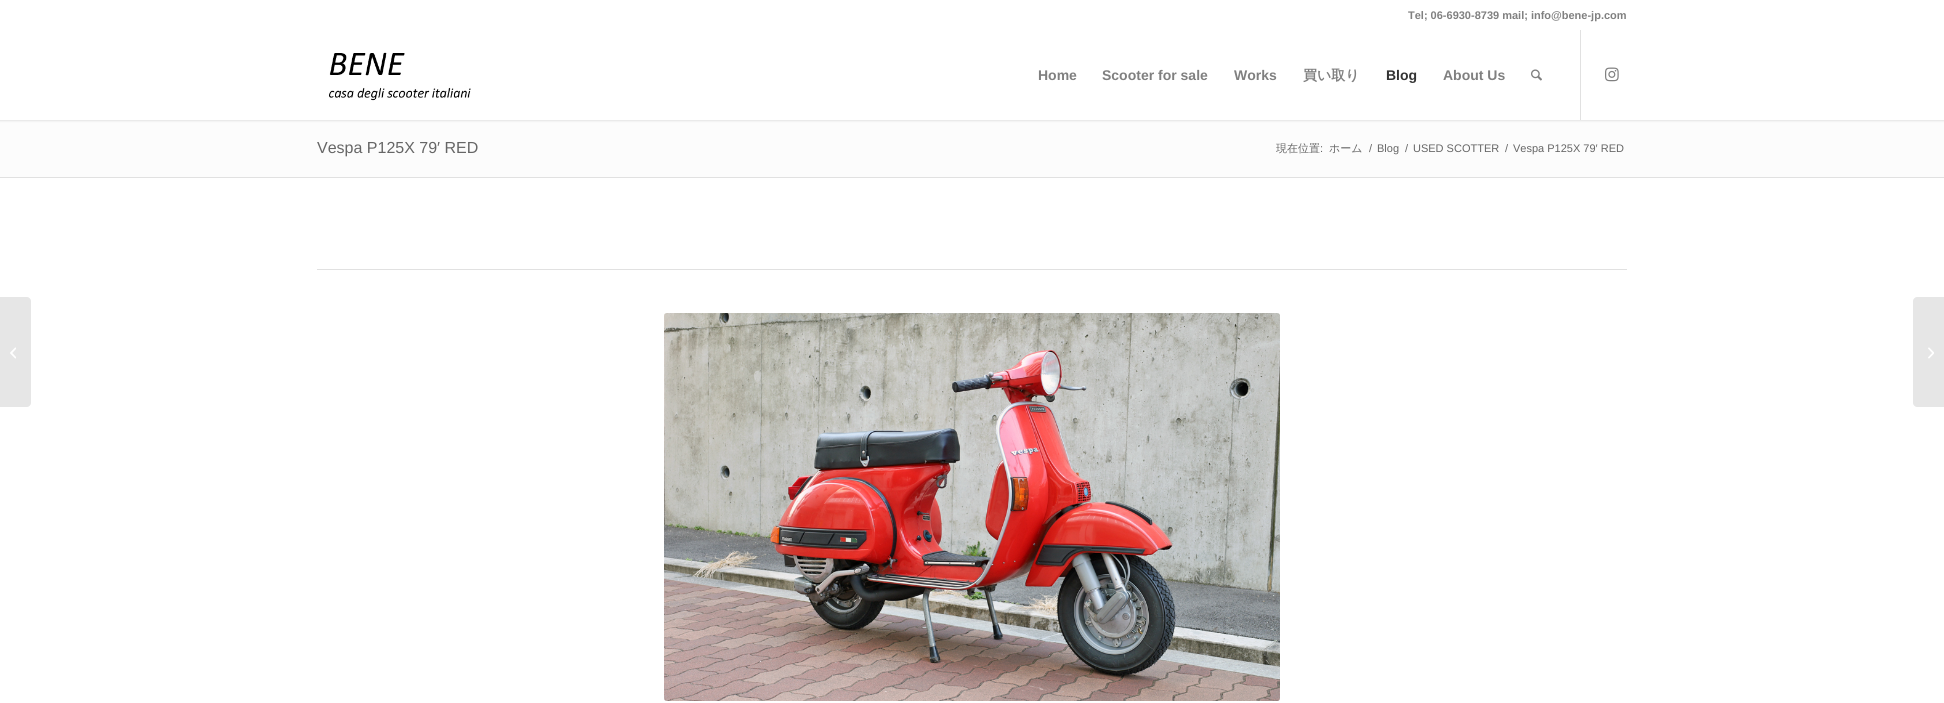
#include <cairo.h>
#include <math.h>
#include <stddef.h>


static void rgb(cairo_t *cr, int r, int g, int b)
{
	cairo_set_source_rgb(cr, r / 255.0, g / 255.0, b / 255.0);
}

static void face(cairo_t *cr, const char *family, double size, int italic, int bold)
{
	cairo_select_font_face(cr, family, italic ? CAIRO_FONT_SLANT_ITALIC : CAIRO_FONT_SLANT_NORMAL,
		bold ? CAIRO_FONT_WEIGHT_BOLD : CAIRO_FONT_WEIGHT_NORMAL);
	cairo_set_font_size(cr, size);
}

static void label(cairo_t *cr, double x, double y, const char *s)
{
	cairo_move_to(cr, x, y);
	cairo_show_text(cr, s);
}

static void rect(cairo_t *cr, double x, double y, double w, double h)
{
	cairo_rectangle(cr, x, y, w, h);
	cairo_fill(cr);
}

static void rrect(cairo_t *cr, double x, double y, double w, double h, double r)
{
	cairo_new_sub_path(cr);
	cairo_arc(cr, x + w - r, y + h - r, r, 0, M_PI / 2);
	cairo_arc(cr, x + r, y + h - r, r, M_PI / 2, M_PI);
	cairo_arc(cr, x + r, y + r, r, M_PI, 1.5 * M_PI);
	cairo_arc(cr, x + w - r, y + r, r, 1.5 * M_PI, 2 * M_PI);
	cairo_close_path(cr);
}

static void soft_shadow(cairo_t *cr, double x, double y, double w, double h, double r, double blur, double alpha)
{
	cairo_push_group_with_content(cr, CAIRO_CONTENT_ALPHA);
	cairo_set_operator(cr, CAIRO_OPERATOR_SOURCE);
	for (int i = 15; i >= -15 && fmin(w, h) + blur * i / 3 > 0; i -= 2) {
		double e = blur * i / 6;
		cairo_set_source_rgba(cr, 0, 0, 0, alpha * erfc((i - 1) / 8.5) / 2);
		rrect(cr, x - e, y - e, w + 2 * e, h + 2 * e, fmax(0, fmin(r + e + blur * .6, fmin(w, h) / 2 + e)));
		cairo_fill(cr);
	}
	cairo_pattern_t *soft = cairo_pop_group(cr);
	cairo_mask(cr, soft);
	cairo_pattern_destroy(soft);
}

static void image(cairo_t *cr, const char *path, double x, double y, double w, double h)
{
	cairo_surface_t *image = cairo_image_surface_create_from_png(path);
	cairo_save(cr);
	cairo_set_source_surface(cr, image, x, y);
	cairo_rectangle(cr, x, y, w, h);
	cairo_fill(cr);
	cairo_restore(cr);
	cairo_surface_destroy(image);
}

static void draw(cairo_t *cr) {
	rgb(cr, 255, 255, 255);
	cairo_paint(cr);
	rgb(cr, 252, 252, 252);
	rect(cr, 0, 120, 1944, 57);
	rgb(cr, 0, 0, 0);
	soft_shadow(cr, -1, -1, 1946, 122, 0, 1, 0.1);
	rgb(cr, 255, 255, 255);
	rect(cr, 0, 0, 1944, 120);
	face(cr, "Liberation Sans", 11, 0, 1);
	rgb(cr, 128, 128, 128);
	label(cr, 1408, 19, "Tel; 06-6930-8739 mail; info@bene-jp.com");
	image(cr, "image0.png", 329, 52, 142, 49);
	rgb(cr, 225, 225, 225);
	rect(cr, 1580, 30, 1, 90);
	face(cr, "Liberation Sans", 14, 0, 1);
	rgb(cr, 128, 128, 128);
	label(cr, 1038, 80, "Home");
	label(cr, 1102, 80, "Scooter for sale");
	label(cr, 1234, 80, "Works");
	face(cr, "WenQuanYi Zen Hei", 14, 0, 1);
	label(cr, 1303, 80, "買い取り");
	face(cr, "Liberation Sans", 14, 0, 1);
	rgb(cr, 51, 51, 51);
	label(cr, 1386, 80, "Blog");
	rgb(cr, 128, 128, 128);
	label(cr, 1443, 80, "About Us");
	image(cr, "image1.png", 1531, 69, 11, 12);
	image(cr, "image2.png", 1605, 67, 14, 15);
	face(cr, "Liberation Sans", 16, 0, 0);
	rgb(cr, 102, 102, 102);
	label(cr, 317, 153, "Vespa P125X 79′ RED");
	face(cr, "WenQuanYi Zen Hei Medium", 11, 0, 0);
	label(cr, 1276, 152, "現在位置");
	face(cr, "Liberation Sans", 11, 0, 0);
	label(cr, 1320, 152, ":");
	face(cr, "WenQuanYi Zen Hei Medium", 11, 0, 0);
	label(cr, 1329, 152, "ホーム");
	face(cr, "Liberation Sans", 11, 0, 0);
	label(cr, 1369, 152, "/");
	label(cr, 1377, 152, "Blog");
	label(cr, 1405, 152, "/");
	label(cr, 1413, 152, "USED SCOTTER");
	label(cr, 1505, 152, "/");
	label(cr, 1513, 152, "Vespa P125X 79′ RED");
	rgb(cr, 225, 225, 225);
	rect(cr, 0, 177, 1944, 1);
	rect(cr, 317, 269, 1310, 1);
	image(cr, "image3.png", 664, 313, 616, 388);
	rgb(cr, 230, 230, 230);
	cairo_new_path(cr);
	cairo_move_to(cr, 0, 297);
	cairo_line_to(cr, 27, 297);
	cairo_curve_to(cr, 29, 297, 31, 299, 31, 301);
	cairo_line_to(cr, 31, 403);
	cairo_curve_to(cr, 31, 405, 29, 407, 27, 407);
	cairo_line_to(cr, 0, 407);
	cairo_close_path(cr);
	cairo_fill(cr);
	image(cr, "image4.png", 10, 347, 6, 12);
	cairo_new_path(cr);
	cairo_move_to(cr, 1917, 297);
	cairo_line_to(cr, 1944, 297);
	cairo_line_to(cr, 1944, 407);
	cairo_line_to(cr, 1917, 407);
	cairo_curve_to(cr, 1915, 407, 1913, 405, 1913, 403);
	cairo_line_to(cr, 1913, 301);
	cairo_curve_to(cr, 1913, 299, 1915, 297, 1917, 297);
	cairo_close_path(cr);
	cairo_fill(cr);
	image(cr, "image5.png", 1928, 347, 6, 12);
}

int main(void) {
	cairo_surface_t *surface = cairo_image_surface_create(CAIRO_FORMAT_RGB24, 1944, 703);
	cairo_t *cr = cairo_create(surface);
	cairo_font_options_t *options = cairo_font_options_create();
	cairo_font_options_set_hint_metrics(options, CAIRO_HINT_METRICS_OFF);
	cairo_font_options_set_hint_style(options, CAIRO_HINT_STYLE_NONE);
	cairo_set_font_options(cr, options);
	cairo_set_miter_limit(cr, 4);
	draw(cr);
	cairo_surface_write_to_png(surface, "render.png");
	cairo_font_options_destroy(options);
	cairo_destroy(cr);
	cairo_surface_destroy(surface);
	return 0;
}
